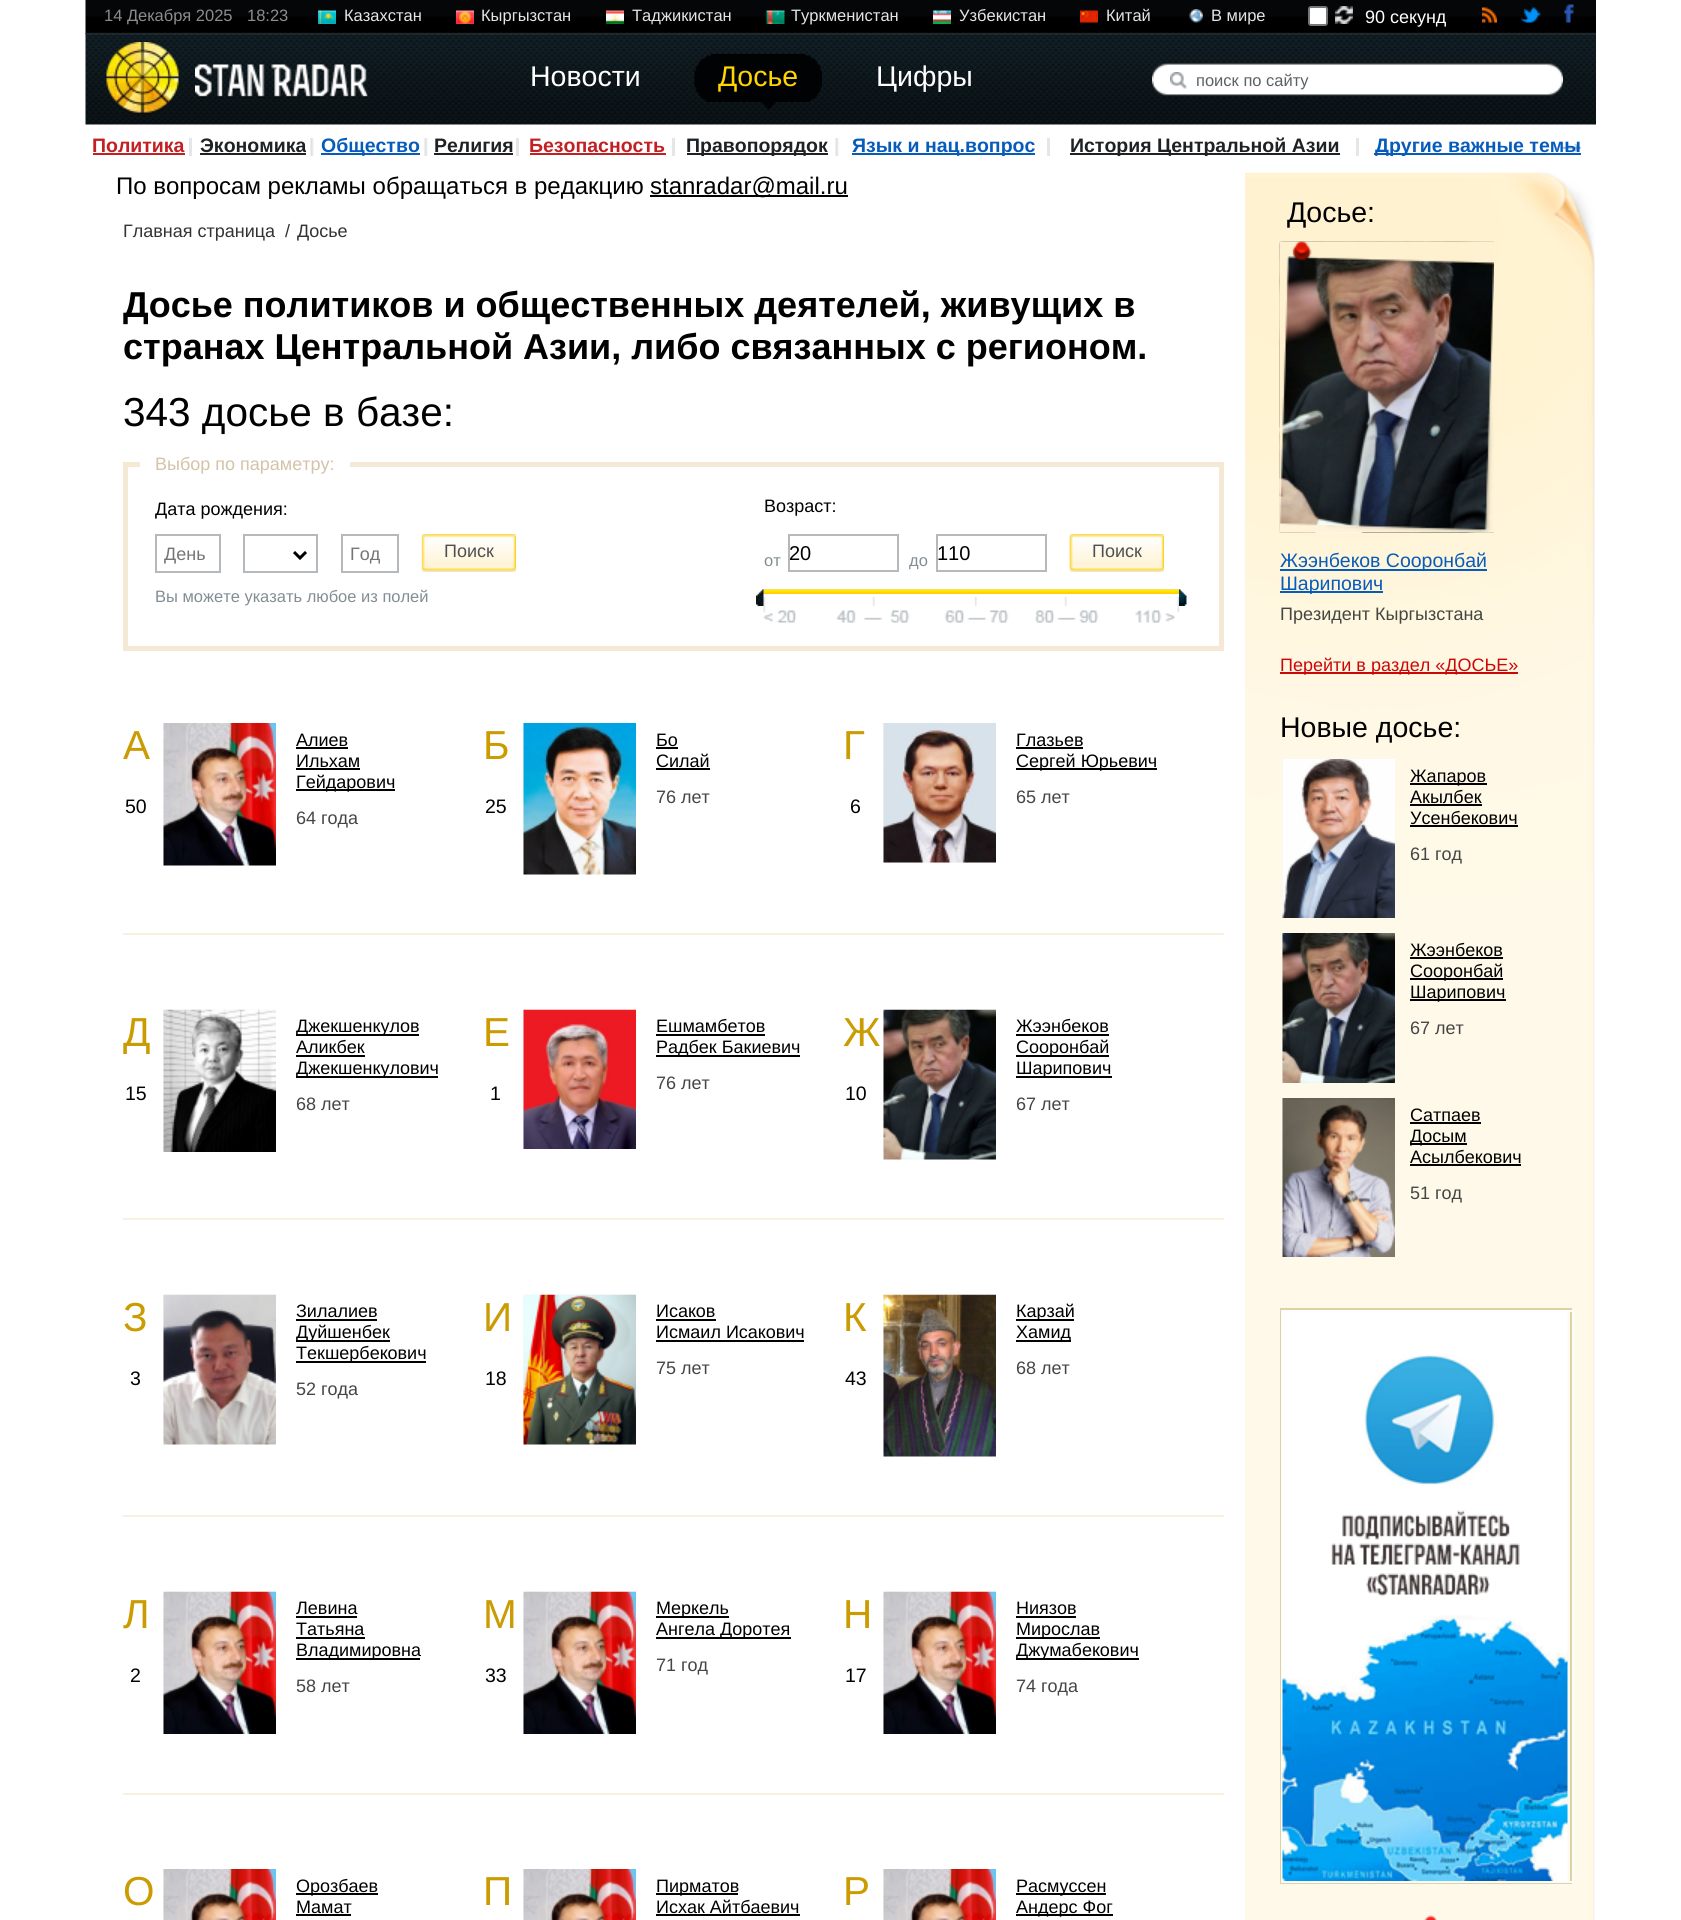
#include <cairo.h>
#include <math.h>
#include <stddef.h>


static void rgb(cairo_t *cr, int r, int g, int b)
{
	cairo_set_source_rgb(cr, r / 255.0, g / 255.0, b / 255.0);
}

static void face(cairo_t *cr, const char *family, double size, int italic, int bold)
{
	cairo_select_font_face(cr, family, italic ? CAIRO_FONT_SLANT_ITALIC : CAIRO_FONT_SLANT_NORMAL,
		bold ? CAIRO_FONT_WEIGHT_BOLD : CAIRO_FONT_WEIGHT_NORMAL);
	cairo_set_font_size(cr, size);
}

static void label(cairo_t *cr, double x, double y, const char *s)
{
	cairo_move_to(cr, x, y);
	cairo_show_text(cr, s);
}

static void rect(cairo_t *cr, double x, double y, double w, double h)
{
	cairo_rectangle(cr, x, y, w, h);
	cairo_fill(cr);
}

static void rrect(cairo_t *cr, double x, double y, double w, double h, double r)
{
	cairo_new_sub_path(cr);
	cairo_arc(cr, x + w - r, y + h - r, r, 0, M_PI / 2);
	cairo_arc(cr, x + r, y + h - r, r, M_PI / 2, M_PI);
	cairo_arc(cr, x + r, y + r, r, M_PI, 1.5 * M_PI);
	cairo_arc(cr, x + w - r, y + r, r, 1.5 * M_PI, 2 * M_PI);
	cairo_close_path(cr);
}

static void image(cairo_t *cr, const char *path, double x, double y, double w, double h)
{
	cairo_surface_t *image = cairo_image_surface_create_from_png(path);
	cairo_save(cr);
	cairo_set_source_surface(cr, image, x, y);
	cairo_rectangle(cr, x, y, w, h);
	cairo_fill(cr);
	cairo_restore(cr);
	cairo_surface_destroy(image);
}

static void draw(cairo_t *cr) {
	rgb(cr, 255, 255, 255);
	cairo_paint(cr);
	image(cr, "image11.png", 85, 33, 1511, 92);
	image(cr, "image0.png", 85, 0, 1511, 35);
	face(cr, "Liberation Sans", 16.5, 0, 0);
	rgb(cr, 141, 141, 141);
	label(cr, 104, 21, "14 Декабря 2025");
	label(cr, 247, 21, "18:23");
	image(cr, "image1.png", 318, 10, 18, 14);
	rgb(cr, 229, 229, 229);
	label(cr, 344, 21, "Казахстан");
	image(cr, "image2.png", 456, 10, 18, 14);
	label(cr, 481, 21, "Кыргызстан");
	image(cr, "image3.png", 606, 10, 18, 14);
	label(cr, 632, 21, "Таджикистан");
	image(cr, "image4.png", 766, 10, 19, 14);
	label(cr, 791, 21, "Туркменистан");
	image(cr, "image5.png", 933, 10, 18, 14);
	label(cr, 959, 21, "Узбекистан");
	image(cr, "image6.png", 1080, 10, 18, 13);
	label(cr, 1106, 21, "Китай");
	image(cr, "image7.png", 1189, 9, 14, 14);
	label(cr, 1211, 21, "В мире");
	image(cr, "image8.png", 1482, 7, 15, 16);
	image(cr, "image9.png", 1521, 7, 20, 16);
	image(cr, "image10.png", 1564, 4, 10, 19);
	rgb(cr, 255, 255, 255);
	rrect(cr, 1309, 7, 18, 18, 2);
	cairo_fill_preserve(cr);
	rgb(cr, 118, 118, 118);
	cairo_stroke(cr);
	image(cr, "image12.png", 1335, 6, 18, 18);
	face(cr, "Liberation Sans", 18, 0, 0);
	rgb(cr, 255, 255, 255);
	label(cr, 1365, 23, "90 секунд");
	image(cr, "image13.png", 105, 42, 75, 73);
	image(cr, "image14.png", 195, 64, 173, 34);
	face(cr, "Liberation Sans", 28.5, 0, 0);
	label(cr, 530, 86, "Новости");
	image(cr, "image15.png", 798, 54, 24, 48);
	image(cr, "image16.png", 694, 54, 104, 48);
	rgb(cr, 255, 214, 0);
	label(cr, 718, 86, "Досье");
	image(cr, "image17.png", 762, 102, 14, 8);
	rgb(cr, 255, 255, 255);
	label(cr, 876, 86, "Цифры");
	image(cr, "image19.png", 1152, 63, 411, 33);
	image(cr, "image18.png", 1170, 72, 17, 17);
	face(cr, "Liberation Sans", 16.5, 0, 0);
	rgb(cr, 92, 97, 100);
	label(cr, 1196, 86, "поиск по сайту");
	rgb(cr, 229, 230, 232);
	rect(cr, 189, 138, 3, 18);
	face(cr, "Liberation Sans", 19.5, 0, 1);
	rgb(cr, 194, 32, 35);
	label(cr, 92, 152, "Политика");
	rect(cr, 93, 153, 92, 2);
	image(cr, "image20.png", 310, 138, 4, 18);
	rgb(cr, 30, 34, 37);
	label(cr, 200, 152, "Экономика");
	rect(cr, 200, 153, 106, 2);
	image(cr, "image20.png", 424, 138, 4, 18);
	rgb(cr, 7, 92, 187);
	rect(cr, 321, 153, 99, 2);
	label(cr, 321, 152, "Общество");
	rgb(cr, 229, 230, 232);
	rect(cr, 516, 138, 3, 18);
	rgb(cr, 30, 34, 37);
	label(cr, 434, 152, "Религия");
	rect(cr, 434, 153, 79, 2);
	rgb(cr, 229, 230, 232);
	rect(cr, 672, 138, 3, 18);
	rgb(cr, 194, 32, 35);
	label(cr, 529, 152, "Безопасность");
	rect(cr, 530, 153, 136, 2);
	image(cr, "image20.png", 835, 138, 4, 18);
	rgb(cr, 30, 34, 37);
	rect(cr, 687, 153, 141, 2);
	label(cr, 686, 152, "Правопорядок");
	rgb(cr, 228, 230, 231);
	rect(cr, 1047, 138, 3, 18);
	rgb(cr, 7, 92, 187);
	rect(cr, 852, 153, 183, 2);
	label(cr, 852, 152, "Язык и нац.вопрос");
	rgb(cr, 228, 230, 231);
	rect(cr, 1356, 138, 3, 18);
	rgb(cr, 30, 34, 37);
	rect(cr, 1070, 153, 270, 2);
	label(cr, 1070, 152, "История Центральной Азии");
	image(cr, "image21.png", 1561, 144, 20, 8);
	rgb(cr, 7, 92, 187);
	rect(cr, 1374, 153, 207, 2);
	label(cr, 1375, 152, "Другие важные темы");
	face(cr, "Liberation Sans", 24, 0, 0);
	rgb(cr, 0, 0, 0);
	label(cr, 116, 194, "По вопросам рекламы обращаться в редакцию");
	rect(cr, 650, 195, 198, 2);
	label(cr, 650, 194, "stanradar@mail.ru");
	face(cr, "Liberation Sans", 18, 0, 0);
	rgb(cr, 51, 51, 51);
	label(cr, 123, 237, "Главная страница");
	label(cr, 285, 237, "/");
	label(cr, 297, 237, "Досье");
	face(cr, "Liberation Sans", 36, 0, 1);
	rgb(cr, 0, 0, 0);
	label(cr, 123, 317, "Досье политиков и общественных деятелей, живущих в");
	label(cr, 123, 359, "странах Центральной Азии, либо связанных с регионом.");
	face(cr, "Liberation Sans", 40.5, 0, 0);
	label(cr, 123, 426, "343 досье в базе:");
	cairo_rectangle(cr, 125.5, 464.5, 1096, 184);
	rgb(cr, 245, 232, 212);
	cairo_set_line_width(cr, 5);
	cairo_stroke(cr);
	rgb(cr, 255, 255, 255);
	rect(cr, 140, 462, 210, 5);
	face(cr, "Liberation Sans", 18, 0, 0);
	rgb(cr, 212, 195, 168);
	label(cr, 155, 470, "Выбор по параметру:");
	rgb(cr, 0, 0, 0);
	label(cr, 155, 515, "Дата рождения:");
	cairo_rectangle(cr, 156, 535, 64, 37);
	rgb(cr, 181, 185, 188);
	cairo_set_line_width(cr, 2);
	cairo_stroke(cr);
	cairo_save(cr);
	cairo_rectangle(cr, 164, 543, 48, 21);
	cairo_clip(cr);
	rgb(cr, 117, 117, 117);
	label(cr, 164, 560, "День");
	cairo_restore(cr);
	cairo_rectangle(cr, 244, 535, 73, 37);
	cairo_stroke(cr);
	cairo_new_path(cr);
	cairo_move_to(cr, 294, 552);
	cairo_line_to(cr, 300, 558);
	cairo_line_to(cr, 306, 552);
	rgb(cr, 0, 0, 0);
	cairo_set_line_width(cr, 3);
	cairo_stroke(cr);
	cairo_rectangle(cr, 342, 535, 56, 37);
	rgb(cr, 181, 185, 188);
	cairo_set_line_width(cr, 2);
	cairo_stroke(cr);
	rgb(cr, 117, 117, 117);
	label(cr, 350, 560, "Год");
	rgb(cr, 239, 239, 239);
	rect(cr, 422, 534, 94, 38);
	image(cr, "image22.png", 421, 534, 95, 38);
	rgb(cr, 80, 80, 80);
	label(cr, 444, 557, "Поиск");
	face(cr, "Liberation Sans", 16.5, 0, 0);
	rgb(cr, 130, 142, 148);
	label(cr, 155, 602, "Вы можете указать любое из полей");
	face(cr, "Liberation Sans", 18, 0, 0);
	rgb(cr, 0, 0, 0);
	label(cr, 764, 512, "Возраст:");
	cairo_rectangle(cr, 789, 535, 109, 36);
	rgb(cr, 181, 185, 188);
	cairo_stroke(cr);
	face(cr, "Liberation Sans", 20, 0, 0);
	rgb(cr, 0, 0, 0);
	label(cr, 789, 560, "20");
	face(cr, "Liberation Sans", 16.5, 0, 0);
	rgb(cr, 130, 142, 148);
	label(cr, 764, 566, "от");
	cairo_rectangle(cr, 937, 535, 109, 36);
	rgb(cr, 181, 185, 188);
	cairo_stroke(cr);
	face(cr, "Liberation Sans", 20, 0, 0);
	rgb(cr, 0, 0, 0);
	label(cr, 937, 560, "110");
	face(cr, "Liberation Sans", 16.5, 0, 0);
	rgb(cr, 130, 142, 148);
	label(cr, 909, 566, "до");
	rgb(cr, 239, 239, 239);
	rect(cr, 1070, 534, 94, 38);
	image(cr, "image23.png", 1069, 534, 95, 38);
	face(cr, "Liberation Sans", 18, 0, 0);
	rgb(cr, 80, 80, 80);
	label(cr, 1092, 557, "Поиск");
	rgb(cr, 224, 212, 203);
	rect(cr, 763, 589, 416, 5);
	image(cr, "image25.png", 763, 589, 416, 5);
	image(cr, "image27.png", 763, 597, 416, 26);
	image(cr, "image24.png", 756, 589, 8, 17);
	image(cr, "image26.png", 1179, 589, 8, 17);
	face(cr, "Liberation Sans", 40.5, 0, 0);
	rgb(cr, 203, 155, 2);
	label(cr, 123, 759, "А");
	face(cr, "Liberation Sans", 19.5, 0, 0);
	rgb(cr, 0, 0, 0);
	label(cr, 125, 813, "50");
	image(cr, "image28.png", 163, 723, 1, 140);
	image(cr, "image29.png", 163, 723, 113, 143);
	face(cr, "Liberation Sans", 18, 0, 0);
	label(cr, 296, 746, "Алиев");
	rect(cr, 296, 747, 52, 2);
	label(cr, 296, 767, "Ильхам");
	rect(cr, 296, 768, 64, 2);
	rect(cr, 296, 789, 99, 2);
	label(cr, 296, 788, "Гейдарович");
	rgb(cr, 68, 70, 68);
	label(cr, 296, 824, "64 года");
	face(cr, "Liberation Sans", 40.5, 0, 0);
	rgb(cr, 203, 155, 2);
	label(cr, 483, 759, "Б");
	face(cr, "Liberation Sans", 19.5, 0, 0);
	rgb(cr, 0, 0, 0);
	label(cr, 485, 813, "25");
	image(cr, "image28.png", 523, 723, 1, 140);
	image(cr, "image30.png", 523, 723, 113, 152);
	face(cr, "Liberation Sans", 18, 0, 0);
	label(cr, 656, 746, "Бо");
	rect(cr, 656, 747, 22, 2);
	label(cr, 656, 767, "Силай");
	rect(cr, 656, 768, 54, 2);
	rgb(cr, 68, 70, 68);
	label(cr, 656, 803, "76 лет");
	face(cr, "Liberation Sans", 40.5, 0, 0);
	rgb(cr, 203, 155, 2);
	label(cr, 843, 759, "Г");
	face(cr, "Liberation Sans", 19.5, 0, 0);
	rgb(cr, 0, 0, 0);
	label(cr, 850, 813, "6");
	image(cr, "image31.png", 883, 723, 113, 140);
	image(cr, "image32.png", 883, 723, 113, 140);
	face(cr, "Liberation Sans", 18, 0, 0);
	label(cr, 1016, 746, "Глазьев");
	rect(cr, 1016, 747, 67, 2);
	rect(cr, 1016, 768, 141, 2);
	label(cr, 1016, 767, "Сергей Юрьевич");
	rgb(cr, 68, 70, 68);
	label(cr, 1016, 803, "65 лет");
	rgb(cr, 249, 240, 226);
	rect(cr, 123, 933, 1101, 2);
	face(cr, "Liberation Sans", 40.5, 0, 0);
	rgb(cr, 203, 155, 2);
	label(cr, 123, 1046, "Д");
	face(cr, "Liberation Sans", 19.5, 0, 0);
	rgb(cr, 0, 0, 0);
	label(cr, 125, 1100, "15");
	image(cr, "image33.png", 163, 1009, 113, 140);
	image(cr, "image34.png", 163, 1009, 113, 143);
	rect(cr, 296, 1034, 123, 2);
	face(cr, "Liberation Sans", 18, 0, 0);
	label(cr, 296, 1032, "Джекшенкулов");
	label(cr, 296, 1053, "Аликбек");
	rect(cr, 296, 1055, 69, 2);
	rect(cr, 296, 1076, 142, 2);
	label(cr, 296, 1074, "Джекшенкулович");
	rgb(cr, 68, 70, 68);
	label(cr, 296, 1110, "68 лет");
	face(cr, "Liberation Sans", 40.5, 0, 0);
	rgb(cr, 203, 155, 2);
	label(cr, 483, 1046, "Е");
	face(cr, "Liberation Sans", 19.5, 0, 0);
	rgb(cr, 0, 0, 0);
	label(cr, 490, 1100, "1");
	image(cr, "image35.png", 523, 1009, 113, 140);
	image(cr, "image36.png", 523, 1009, 113, 140);
	face(cr, "Liberation Sans", 18, 0, 0);
	label(cr, 656, 1032, "Ешмамбетов");
	rect(cr, 656, 1034, 109, 2);
	rect(cr, 656, 1055, 144, 2);
	label(cr, 656, 1053, "Радбек Бакиевич");
	rgb(cr, 68, 70, 68);
	label(cr, 656, 1089, "76 лет");
	face(cr, "Liberation Sans", 40.5, 0, 0);
	rgb(cr, 203, 155, 2);
	label(cr, 843, 1046, "Ж");
	face(cr, "Liberation Sans", 19.5, 0, 0);
	rgb(cr, 0, 0, 0);
	label(cr, 845, 1100, "10");
	image(cr, "image33.png", 883, 1009, 113, 140);
	image(cr, "image37.png", 883, 1009, 113, 151);
	face(cr, "Liberation Sans", 18, 0, 0);
	label(cr, 1016, 1032, "Жээнбеков");
	rect(cr, 1016, 1034, 93, 2);
	rect(cr, 1016, 1055, 93, 2);
	label(cr, 1016, 1053, "Сооронбай");
	rect(cr, 1016, 1076, 96, 2);
	label(cr, 1016, 1074, "Шарипович");
	rgb(cr, 68, 70, 68);
	label(cr, 1016, 1110, "67 лет");
	rgb(cr, 249, 240, 226);
	rect(cr, 123, 1218, 1101, 2);
	face(cr, "Liberation Sans", 40.5, 0, 0);
	rgb(cr, 203, 155, 2);
	label(cr, 123, 1331, "З");
	face(cr, "Liberation Sans", 19.5, 0, 0);
	rgb(cr, 0, 0, 0);
	label(cr, 130, 1385, "3");
	image(cr, "image33.png", 163, 1294, 113, 140);
	image(cr, "image38.png", 163, 1294, 113, 151);
	face(cr, "Liberation Sans", 18, 0, 0);
	label(cr, 296, 1317, "Зилалиев");
	rect(cr, 296, 1319, 81, 2);
	rect(cr, 296, 1340, 94, 2);
	label(cr, 296, 1338, "Дуйшенбек");
	rect(cr, 296, 1361, 130, 2);
	label(cr, 296, 1359, "Текшербекович");
	rgb(cr, 68, 70, 68);
	label(cr, 296, 1395, "52 года");
	face(cr, "Liberation Sans", 40.5, 0, 0);
	rgb(cr, 203, 155, 2);
	label(cr, 483, 1331, "И");
	face(cr, "Liberation Sans", 19.5, 0, 0);
	rgb(cr, 0, 0, 0);
	label(cr, 485, 1385, "18");
	image(cr, "image35.png", 523, 1294, 113, 140);
	image(cr, "image39.png", 523, 1294, 113, 151);
	face(cr, "Liberation Sans", 18, 0, 0);
	label(cr, 656, 1317, "Исаков");
	rect(cr, 656, 1319, 60, 2);
	label(cr, 656, 1338, "Исмаил Исакович");
	rect(cr, 656, 1340, 148, 2);
	rgb(cr, 68, 70, 68);
	label(cr, 656, 1374, "75 лет");
	face(cr, "Liberation Sans", 40.5, 0, 0);
	rgb(cr, 203, 155, 2);
	label(cr, 843, 1331, "К");
	face(cr, "Liberation Sans", 19.5, 0, 0);
	rgb(cr, 0, 0, 0);
	label(cr, 845, 1385, "43");
	image(cr, "image33.png", 883, 1294, 113, 140);
	image(cr, "image40.png", 883, 1294, 113, 163);
	rect(cr, 1016, 1319, 58, 2);
	face(cr, "Liberation Sans", 18, 0, 0);
	label(cr, 1016, 1317, "Карзай");
	rect(cr, 1016, 1340, 55, 2);
	label(cr, 1016, 1338, "Хамид");
	rgb(cr, 68, 70, 68);
	label(cr, 1016, 1374, "68 лет");
	rgb(cr, 249, 240, 226);
	rect(cr, 123, 1515, 1101, 2);
	face(cr, "Liberation Sans", 40.5, 0, 0);
	rgb(cr, 203, 155, 2);
	label(cr, 123, 1628, "Л");
	face(cr, "Liberation Sans", 19.5, 0, 0);
	rgb(cr, 0, 0, 0);
	label(cr, 130, 1682, "2");
	image(cr, "image33.png", 163, 1591, 113, 140);
	image(cr, "image41.png", 163, 1591, 113, 143);
	face(cr, "Liberation Sans", 18, 0, 0);
	label(cr, 296, 1614, "Левина");
	rect(cr, 296, 1616, 61, 2);
	label(cr, 296, 1635, "Татьяна");
	rect(cr, 296, 1637, 69, 2);
	rect(cr, 296, 1658, 124, 2);
	label(cr, 296, 1656, "Владимировна");
	rgb(cr, 68, 70, 68);
	label(cr, 296, 1692, "58 лет");
	face(cr, "Liberation Sans", 40.5, 0, 0);
	rgb(cr, 203, 155, 2);
	label(cr, 483, 1628, "М");
	face(cr, "Liberation Sans", 19.5, 0, 0);
	rgb(cr, 0, 0, 0);
	label(cr, 485, 1682, "33");
	image(cr, "image35.png", 523, 1591, 113, 140);
	image(cr, "image42.png", 523, 1591, 113, 143);
	rect(cr, 656, 1616, 73, 2);
	face(cr, "Liberation Sans", 18, 0, 0);
	label(cr, 656, 1614, "Меркель");
	rect(cr, 656, 1637, 135, 2);
	label(cr, 656, 1635, "Ангела Доротея");
	rgb(cr, 68, 70, 68);
	label(cr, 656, 1671, "71 год");
	face(cr, "Liberation Sans", 40.5, 0, 0);
	rgb(cr, 203, 155, 2);
	label(cr, 843, 1628, "Н");
	face(cr, "Liberation Sans", 19.5, 0, 0);
	rgb(cr, 0, 0, 0);
	label(cr, 845, 1682, "17");
	image(cr, "image33.png", 883, 1591, 113, 140);
	image(cr, "image41.png", 883, 1591, 113, 143);
	face(cr, "Liberation Sans", 18, 0, 0);
	label(cr, 1016, 1614, "Ниязов");
	rect(cr, 1016, 1616, 60, 2);
	rect(cr, 1016, 1637, 84, 2);
	label(cr, 1016, 1635, "Мирослав");
	rect(cr, 1016, 1658, 123, 2);
	label(cr, 1016, 1656, "Джумабекович");
	rgb(cr, 68, 70, 68);
	label(cr, 1016, 1692, "74 года");
	rgb(cr, 249, 240, 226);
	rect(cr, 123, 1793, 1101, 2);
	face(cr, "Liberation Sans", 40.5, 0, 0);
	rgb(cr, 203, 155, 2);
	label(cr, 123, 1905, "О");
	image(cr, "image43.png", 163, 1869, 1, 51);
	image(cr, "image44.png", 163, 1869, 113, 51);
	rgb(cr, 0, 0, 0);
	rect(cr, 296, 1893, 82, 2);
	face(cr, "Liberation Sans", 18, 0, 0);
	label(cr, 296, 1892, "Орозбаев");
	label(cr, 296, 1913, "Мамат");
	rect(cr, 296, 1914, 55, 2);
	face(cr, "Liberation Sans", 40.5, 0, 0);
	rgb(cr, 203, 155, 2);
	label(cr, 483, 1905, "П");
	image(cr, "image43.png", 523, 1869, 1, 51);
	image(cr, "image45.png", 523, 1869, 113, 51);
	rgb(cr, 0, 0, 0);
	rect(cr, 656, 1893, 82, 2);
	face(cr, "Liberation Sans", 18, 0, 0);
	label(cr, 656, 1892, "Пирматов");
	label(cr, 656, 1913, "Исхак Айтбаевич");
	rect(cr, 656, 1914, 144, 2);
	face(cr, "Liberation Sans", 40.5, 0, 0);
	rgb(cr, 203, 155, 2);
	label(cr, 843, 1905, "Р");
	image(cr, "image43.png", 883, 1869, 1, 51);
	image(cr, "image44.png", 883, 1869, 113, 51);
	rgb(cr, 0, 0, 0);
	rect(cr, 1016, 1893, 90, 2);
	face(cr, "Liberation Sans", 18, 0, 0);
	label(cr, 1016, 1892, "Расмуссен");
	rect(cr, 1016, 1914, 97, 2);
	label(cr, 1016, 1913, "Андерс Фог");
	image(cr, "image46.png", 1245, 172, 350, 1748);
	face(cr, "Liberation Sans", 28.5, 0, 0);
	label(cr, 1287, 222, "Досье:");
	image(cr, "image47.png", 1279, 241, 215, 292);
	image(cr, "image48.png", 1279, 241, 215, 292);
	rgb(cr, 7, 92, 187);
	rect(cr, 1280, 569, 207, 2);
	face(cr, "Liberation Sans", 19.5, 0, 0);
	label(cr, 1280, 567, "Жээнбеков Сооронбай");
	rect(cr, 1280, 591, 103, 2);
	label(cr, 1280, 590, "Шарипович");
	face(cr, "Liberation Sans", 18, 0, 0);
	rgb(cr, 68, 70, 68);
	label(cr, 1280, 620, "Президент Кыргызcтана");
	rgb(cr, 203, 7, 7);
	rect(cr, 1280, 672, 238, 2);
	label(cr, 1280, 671, "Перейти в раздел «ДОСЬЕ»");
	face(cr, "Liberation Sans", 28.5, 0, 0);
	rgb(cr, 0, 0, 0);
	label(cr, 1280, 737, "Новые досье:");
	image(cr, "image49.png", 1282, 759, 1, 140);
	image(cr, "image50.png", 1282, 759, 113, 159);
	rect(cr, 1410, 783, 77, 2);
	face(cr, "Liberation Sans", 18, 0, 0);
	label(cr, 1410, 782, "Жапаров");
	label(cr, 1410, 803, "Акылбек");
	rect(cr, 1410, 804, 72, 2);
	label(cr, 1410, 824, "Усенбекович");
	rect(cr, 1410, 825, 108, 2);
	rgb(cr, 68, 70, 68);
	label(cr, 1410, 860, "61 год");
	image(cr, "image51.png", 1282, 933, 1, 140);
	image(cr, "image52.png", 1282, 933, 113, 150);
	rgb(cr, 0, 0, 0);
	label(cr, 1410, 956, "Жээнбеков");
	rect(cr, 1410, 957, 93, 2);
	rect(cr, 1410, 978, 93, 2);
	label(cr, 1410, 977, "Сооронбай");
	rect(cr, 1410, 999, 96, 2);
	label(cr, 1410, 998, "Шарипович");
	rgb(cr, 68, 70, 68);
	label(cr, 1410, 1034, "67 лет");
	image(cr, "image51.png", 1282, 1098, 1, 140);
	image(cr, "image53.png", 1282, 1098, 113, 159);
	rgb(cr, 0, 0, 0);
	label(cr, 1410, 1121, "Сатпаев");
	rect(cr, 1410, 1122, 71, 2);
	rect(cr, 1410, 1143, 57, 2);
	label(cr, 1410, 1142, "Досым");
	label(cr, 1410, 1163, "Асылбекович");
	rect(cr, 1410, 1164, 111, 2);
	rgb(cr, 68, 70, 68);
	label(cr, 1410, 1199, "51 год");
	cairo_rectangle(cr, 1281, 1309, 290, 574);
	rgb(cr, 221, 210, 167);
	cairo_stroke(cr);
	cairo_rectangle(cr, 1282, 1311, 291, 571);
	rgb(cr, 250, 253, 252);
	cairo_stroke(cr);
	image(cr, "image54.png", 1282, 1311, 286, 570);
	image(cr, "image55.png", 1424, 1915, 14, 5);
}

int main(void) {
	cairo_surface_t *surface = cairo_image_surface_create(CAIRO_FORMAT_RGB24, 1681, 1920);
	cairo_t *cr = cairo_create(surface);
	cairo_font_options_t *options = cairo_font_options_create();
	cairo_font_options_set_hint_metrics(options, CAIRO_HINT_METRICS_OFF);
	cairo_font_options_set_hint_style(options, CAIRO_HINT_STYLE_NONE);
	cairo_set_font_options(cr, options);
	cairo_set_miter_limit(cr, 4);
	draw(cr);
	cairo_surface_write_to_png(surface, "render.png");
	cairo_font_options_destroy(options);
	cairo_destroy(cr);
	cairo_surface_destroy(surface);
	return 0;
}
